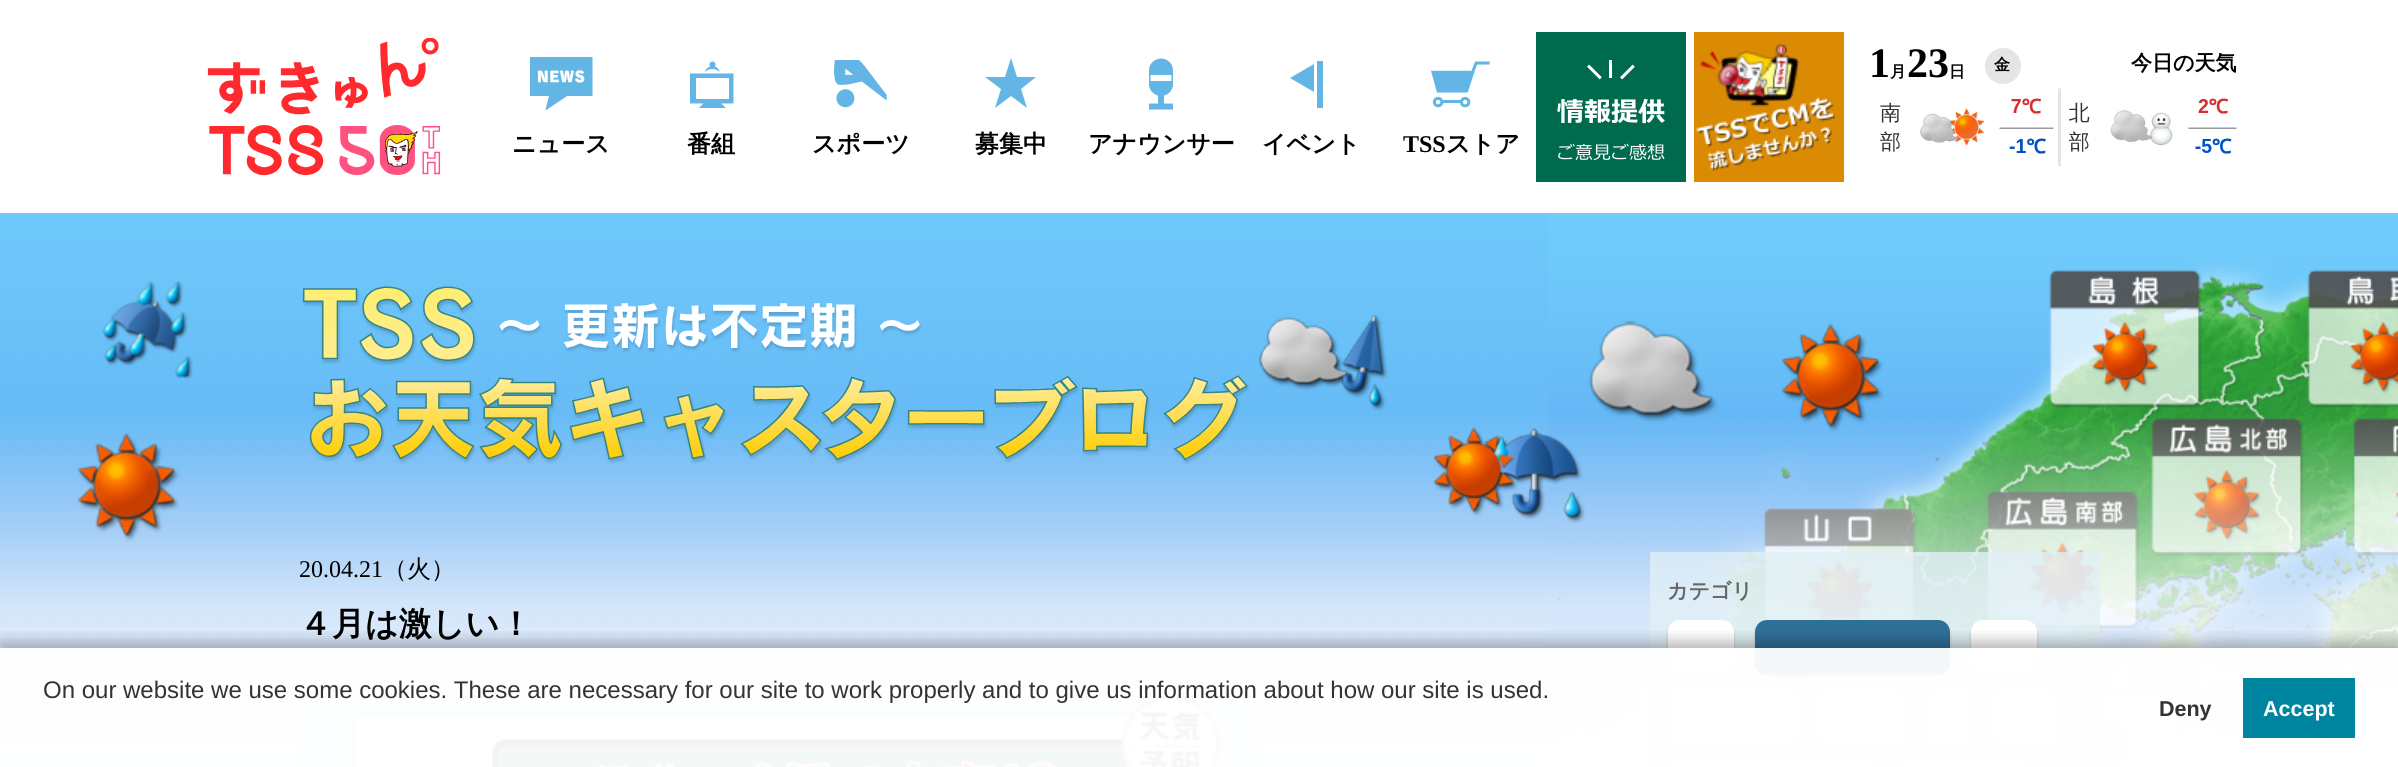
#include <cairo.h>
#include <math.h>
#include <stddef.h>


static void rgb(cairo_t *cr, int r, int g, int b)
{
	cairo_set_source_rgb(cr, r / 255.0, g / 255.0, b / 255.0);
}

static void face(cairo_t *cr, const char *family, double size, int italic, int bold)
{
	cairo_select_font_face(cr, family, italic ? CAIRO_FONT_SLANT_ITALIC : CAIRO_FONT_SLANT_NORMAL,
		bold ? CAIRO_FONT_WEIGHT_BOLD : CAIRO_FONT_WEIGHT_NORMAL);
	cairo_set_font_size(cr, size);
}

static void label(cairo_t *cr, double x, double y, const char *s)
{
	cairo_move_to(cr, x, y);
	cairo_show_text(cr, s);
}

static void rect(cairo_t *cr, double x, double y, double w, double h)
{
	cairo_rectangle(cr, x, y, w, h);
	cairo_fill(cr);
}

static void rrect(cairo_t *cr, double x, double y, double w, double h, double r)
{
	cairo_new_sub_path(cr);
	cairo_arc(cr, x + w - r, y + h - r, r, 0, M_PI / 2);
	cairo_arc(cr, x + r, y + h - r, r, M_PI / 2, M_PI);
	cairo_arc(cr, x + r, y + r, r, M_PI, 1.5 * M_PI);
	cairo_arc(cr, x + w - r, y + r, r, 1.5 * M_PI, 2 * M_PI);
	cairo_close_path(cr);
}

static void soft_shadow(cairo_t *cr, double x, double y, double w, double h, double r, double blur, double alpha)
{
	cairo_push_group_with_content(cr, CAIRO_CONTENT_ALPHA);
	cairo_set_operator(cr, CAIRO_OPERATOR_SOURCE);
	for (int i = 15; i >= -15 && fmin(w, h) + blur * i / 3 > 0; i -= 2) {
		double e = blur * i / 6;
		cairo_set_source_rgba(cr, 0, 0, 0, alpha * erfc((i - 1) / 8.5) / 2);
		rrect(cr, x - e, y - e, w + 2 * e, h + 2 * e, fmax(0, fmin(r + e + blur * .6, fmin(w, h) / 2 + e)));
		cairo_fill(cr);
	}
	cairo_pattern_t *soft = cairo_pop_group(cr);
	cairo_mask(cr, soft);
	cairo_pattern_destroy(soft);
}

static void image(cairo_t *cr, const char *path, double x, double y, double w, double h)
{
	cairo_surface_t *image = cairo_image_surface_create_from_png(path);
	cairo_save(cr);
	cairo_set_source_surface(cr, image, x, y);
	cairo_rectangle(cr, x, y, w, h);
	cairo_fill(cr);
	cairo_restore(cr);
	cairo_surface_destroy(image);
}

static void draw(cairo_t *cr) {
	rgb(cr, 255, 255, 255);
	cairo_paint(cr);
	image(cr, "image0.png", 207, 38, 234, 138);
	rgb(cr, 0, 106, 79);
	rect(cr, 1536, 32, 150, 150);
	image(cr, "image1.png", 1557, 60, 108, 100);
	rgb(cr, 219, 138, 3);
	rect(cr, 1694, 32, 150, 150);
	image(cr, "image2.png", 1696, 43, 140, 129);
	face(cr, "Liberation Serif", 42, 0, 1);
	rgb(cr, 0, 0, 0);
	label(cr, 1869, 77, "1");
	face(cr, "WenQuanYi Zen Hei", 16, 0, 1);
	label(cr, 1890, 77, "月");
	face(cr, "Liberation Serif", 42, 0, 1);
	label(cr, 1907, 77, "23");
	face(cr, "WenQuanYi Zen Hei", 16, 0, 1);
	label(cr, 1949, 77, "日");
	rgb(cr, 229, 229, 229);
	cairo_new_path(cr);
	cairo_arc(cr, 2003, 66, 18, 0, 2 * M_PI);
	cairo_fill(cr);
	rgb(cr, 0, 0, 0);
	label(cr, 1994, 70, "金");
	face(cr, "WenQuanYi Zen Hei", 21, 0, 1);
	label(cr, 2131, 70, "今日の天気");
	image(cr, "image3.png", 1880, 88, 357, 79);
	image(cr, "image4.png", 530, 57, 63, 54);
	face(cr, "WenQuanYi Zen Hei", 24, 0, 1);
	label(cr, 512, 152, "ニュース");
	image(cr, "image5.png", 690, 61, 44, 47);
	label(cr, 687, 152, "番組");
	image(cr, "image6.png", 834, 60, 53, 48);
	label(cr, 812, 152, "スポーツ");
	rgb(cr, 98, 181, 228);
	cairo_new_path(cr);
	cairo_move_to(cr, 1011, 58);
	cairo_line_to(cr, 1017, 77);
	cairo_line_to(cr, 1036, 77);
	cairo_line_to(cr, 1021, 89);
	cairo_line_to(cr, 1027, 108);
	cairo_line_to(cr, 1011, 96);
	cairo_line_to(cr, 995, 108);
	cairo_line_to(cr, 1001, 89);
	cairo_line_to(cr, 985, 77);
	cairo_line_to(cr, 1005, 77);
	cairo_close_path(cr);
	cairo_fill(cr);
	rgb(cr, 0, 0, 0);
	label(cr, 975, 152, "募集中");
	image(cr, "image7.png", 1149, 58, 24, 52);
	label(cr, 1088, 152, "アナウンサー");
	rgb(cr, 98, 181, 228);
	cairo_new_path(cr);
	cairo_move_to(cr, 1317, 108);
	cairo_line_to(cr, 1317, 61);
	cairo_line_to(cr, 1323, 61);
	cairo_line_to(cr, 1323, 108);
	cairo_close_path(cr);
	cairo_move_to(cr, 1290, 78);
	cairo_line_to(cr, 1314, 64);
	cairo_line_to(cr, 1314, 92);
	cairo_close_path(cr);
	cairo_fill(cr);
	rgb(cr, 0, 0, 0);
	label(cr, 1262, 152, "イベント");
	image(cr, "image8.png", 1431, 61, 59, 47);
	face(cr, "Liberation Serif", 24, 0, 1);
	label(cr, 1403, 152, "TSS");
	face(cr, "WenQuanYi Zen Hei", 24, 0, 1);
	label(cr, 1446, 152, "ストア");
	image(cr, "image9.png", 0, 213, 2398, 554);
	image(cr, "image10.png", 302, 286, 948, 178);
	face(cr, "Liberation Serif", 24, 0, 0);
	label(cr, 299, 577, "20.04.21");
	face(cr, "WenQuanYi Zen Hei Medium", 24, 0, 0);
	label(cr, 383, 577, "（火）");
	face(cr, "WenQuanYi Zen Hei", 33, 0, 1);
	label(cr, 299, 635, "４月は激しい！");
	image(cr, "image11.png", 300, 670, 960, 97);
	cairo_set_source_rgba(cr, 0.882, 0.933, 0.965, 0.8);
	rect(cr, 1650, 552, 450, 215);
	face(cr, "WenQuanYi Zen Hei", 21, 0, 1);
	rgb(cr, 102, 102, 102);
	label(cr, 1667, 598, "カテゴリ");
	rgb(cr, 0, 0, 0);
	soft_shadow(cr, 1668, 623, 66, 55, 12, 1.5, 0.16);
	rgb(cr, 255, 255, 255);
	rrect(cr, 1668, 620, 66, 55, 12);
	cairo_fill(cr);
	rgb(cr, 0, 0, 0);
	soft_shadow(cr, 1755, 623, 195, 55, 12, 1.5, 0.16);
	rgb(cr, 47, 112, 152);
	rrect(cr, 1755, 620, 195, 55, 12);
	cairo_fill(cr);
	rgb(cr, 0, 0, 0);
	soft_shadow(cr, 1971, 623, 66, 55, 12, 1.5, 0.16);
	rgb(cr, 255, 255, 255);
	rrect(cr, 1971, 620, 66, 55, 12);
	cairo_fill(cr);
	rgb(cr, 0, 0, 0);
	soft_shadow(cr, 1668, 693, 129, 56, 12, 1.5, 0.16);
	rgb(cr, 255, 255, 255);
	rrect(cr, 1668, 690, 129, 56, 12);
	cairo_fill(cr);
	rgb(cr, 0, 0, 0);
	soft_shadow(cr, 1818, 693, 87, 56, 12, 1.5, 0.16);
	rgb(cr, 255, 255, 255);
	rrect(cr, 1818, 690, 87, 56, 12);
	cairo_fill(cr);
	rgb(cr, 0, 0, 0);
	soft_shadow(cr, 1926, 693, 45, 56, 12, 1.5, 0.16);
	rgb(cr, 255, 255, 255);
	rrect(cr, 1926, 690, 45, 56, 12);
	cairo_fill(cr);
	rgb(cr, 0, 0, 0);
	soft_shadow(cr, 1992, 693, 66, 56, 12, 1.5, 0.16);
	rgb(cr, 255, 255, 255);
	rrect(cr, 1992, 690, 66, 56, 12);
	cairo_fill(cr);
	rrect(cr, 1668, 761, 213, 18, 12);
	cairo_fill(cr);
	rrect(cr, 1902, 761, 131, 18, 12);
	cairo_fill(cr);
	cairo_save(cr);
	cairo_rectangle(cr, 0, 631, 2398, 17);
	cairo_clip(cr);
	rgb(cr, 0, 0, 0);
	soft_shadow(cr, 0, 642, 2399, 120, 0, 7.5, 0.3);
	cairo_restore(cr);
	cairo_set_source_rgba(cr, 1, 1, 1, 0.95);
	rect(cr, 0, 648, 2398, 119);
	face(cr, "Liberation Sans", 24, 0, 0);
	rgb(cr, 51, 51, 51);
	label(cr, 43, 698, "On our website we use some cookies. These are necessary for our site to work properly and to give us information about how our site is used.");
	face(cr, "Liberation Sans", 21.5, 0, 1);
	label(cr, 2159, 716, "Deny");
	rgb(cr, 0, 133, 161);
	rect(cr, 2243, 678, 112, 60);
	rgb(cr, 255, 255, 255);
	label(cr, 2263, 716, "Accept");
}

int main(void) {
	cairo_surface_t *surface = cairo_image_surface_create(CAIRO_FORMAT_RGB24, 2398, 767);
	cairo_t *cr = cairo_create(surface);
	cairo_font_options_t *options = cairo_font_options_create();
	cairo_font_options_set_hint_metrics(options, CAIRO_HINT_METRICS_OFF);
	cairo_font_options_set_hint_style(options, CAIRO_HINT_STYLE_NONE);
	cairo_set_font_options(cr, options);
	cairo_set_miter_limit(cr, 4);
	draw(cr);
	cairo_surface_write_to_png(surface, "render.png");
	cairo_font_options_destroy(options);
	cairo_destroy(cr);
	cairo_surface_destroy(surface);
	return 0;
}
